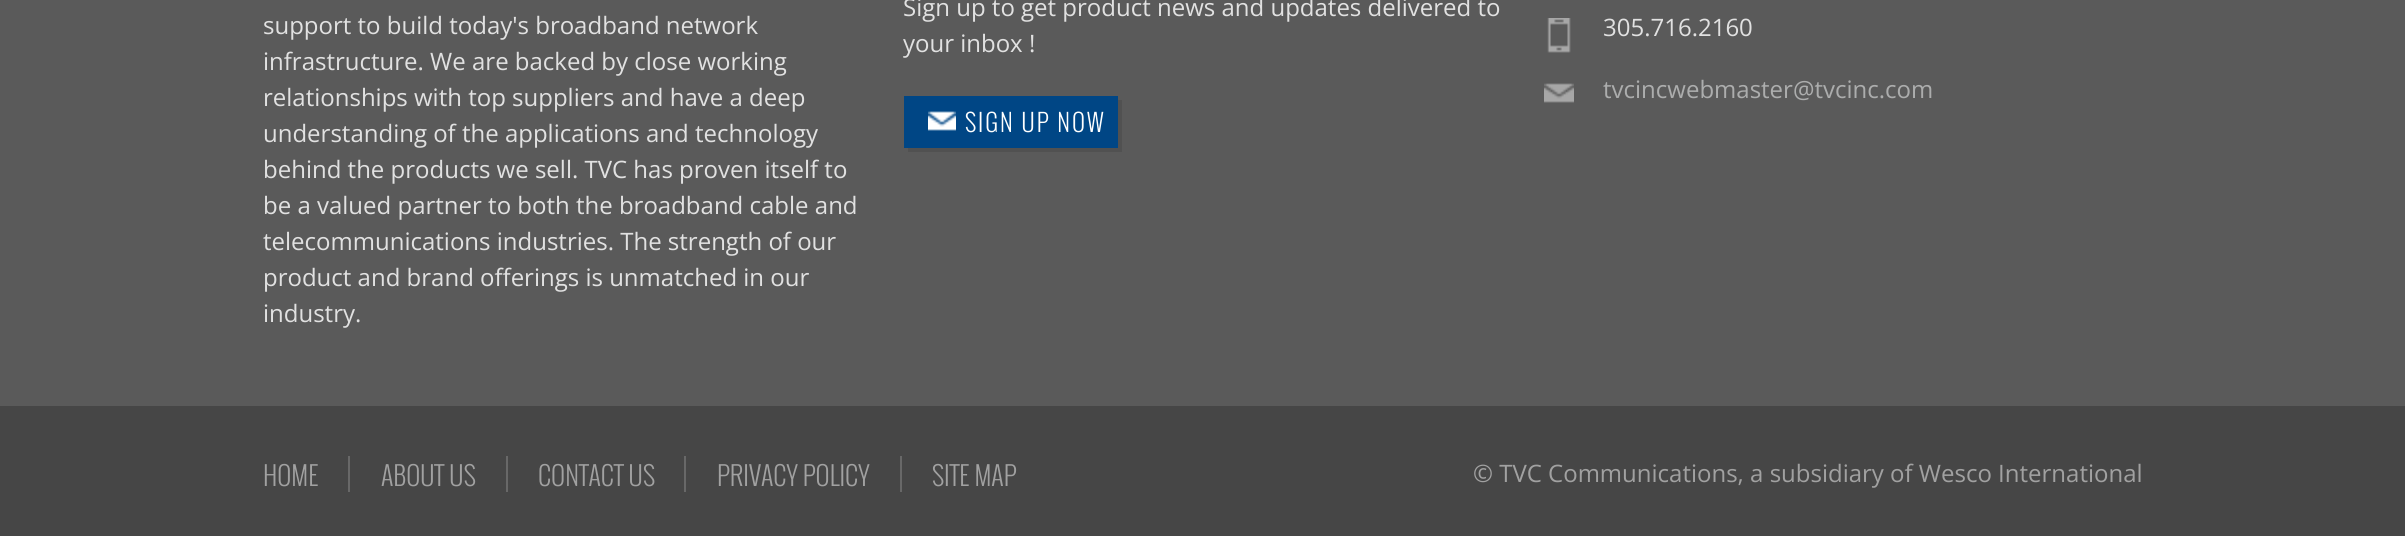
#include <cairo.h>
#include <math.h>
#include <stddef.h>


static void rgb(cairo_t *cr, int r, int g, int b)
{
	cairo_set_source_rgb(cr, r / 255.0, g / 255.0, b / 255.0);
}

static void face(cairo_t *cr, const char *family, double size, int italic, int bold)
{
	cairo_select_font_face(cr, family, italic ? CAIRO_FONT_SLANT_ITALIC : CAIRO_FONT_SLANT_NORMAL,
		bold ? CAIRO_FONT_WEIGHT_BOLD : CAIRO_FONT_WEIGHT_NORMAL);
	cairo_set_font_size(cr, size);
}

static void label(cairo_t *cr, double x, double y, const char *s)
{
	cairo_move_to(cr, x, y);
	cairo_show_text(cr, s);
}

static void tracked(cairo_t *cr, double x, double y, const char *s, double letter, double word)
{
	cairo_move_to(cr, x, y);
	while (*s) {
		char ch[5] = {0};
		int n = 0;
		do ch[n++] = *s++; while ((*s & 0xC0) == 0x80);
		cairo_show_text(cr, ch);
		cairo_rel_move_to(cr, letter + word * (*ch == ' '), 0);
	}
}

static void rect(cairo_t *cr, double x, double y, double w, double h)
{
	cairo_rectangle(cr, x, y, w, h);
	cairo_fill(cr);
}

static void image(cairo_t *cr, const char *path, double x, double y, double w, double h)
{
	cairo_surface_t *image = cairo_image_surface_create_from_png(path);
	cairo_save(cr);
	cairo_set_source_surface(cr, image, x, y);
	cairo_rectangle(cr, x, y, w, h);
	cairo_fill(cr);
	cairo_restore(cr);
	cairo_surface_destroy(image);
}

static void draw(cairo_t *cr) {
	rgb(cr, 70, 70, 70);
	cairo_paint(cr);
	rgb(cr, 90, 90, 90);
	rect(cr, 0, 0, 2405, 406);
	face(cr, "Open Sans", 24, 0, 0);
	rgb(cr, 225, 225, 225);
	label(cr, 263, 34, "support to build today's broadband network");
	label(cr, 263, 70, "infrastructure. We are backed by close working");
	label(cr, 263, 106, "relationships with top suppliers and have a deep");
	label(cr, 263, 142, "understanding of the applications and technology");
	label(cr, 263, 178, "behind the products we sell. TVC has proven itself to");
	label(cr, 263, 214, "be a valued partner to both the broadband cable and");
	label(cr, 263, 250, "telecommunications industries. The strength of our");
	label(cr, 263, 286, "product and brand offerings is unmatched in our");
	label(cr, 263, 322, "industry.");
	label(cr, 903, 16, "Sign up to get product news and updates delivered to");
	label(cr, 903, 52, "your inbox !");
	rgb(cr, 81, 81, 81);
	cairo_new_path(cr);
	cairo_move_to(cr, 908, 148);
	cairo_line_to(cr, 908, 152);
	cairo_line_to(cr, 1122, 152);
	cairo_line_to(cr, 1122, 100);
	cairo_line_to(cr, 1118, 100);
	cairo_line_to(cr, 1118, 148);
	cairo_close_path(cr);
	cairo_fill(cr);
	rgb(cr, 0, 70, 133);
	rect(cr, 904, 96, 214, 52);
	image(cr, "image0.png", 928, 111, 28, 20);
	face(cr, "Oswald Light", 24, 0, 0);
	rgb(cr, 255, 255, 255);
	tracked(cr, 965, 132, "SIGN UP NOW", 2, 0);
	image(cr, "image1.png", 1547, 18, 24, 35);
	face(cr, "Open Sans", 24, 0, 0);
	rgb(cr, 225, 225, 225);
	label(cr, 1603, 36, "305.716.2160");
	image(cr, "image2.png", 1544, 83, 30, 20);
	rgb(cr, 172, 173, 173);
	label(cr, 1603, 98, "tvcincwebmaster@tvcinc.com");
	face(cr, "Oswald Light", 26, 0, 0);
	rgb(cr, 161, 161, 161);
	label(cr, 263, 486, "HOME");
	rgb(cr, 104, 104, 104);
	rect(cr, 348, 456, 2, 36);
	rgb(cr, 161, 161, 161);
	label(cr, 381, 486, "ABOUT US");
	rgb(cr, 104, 104, 104);
	rect(cr, 506, 456, 2, 36);
	rgb(cr, 161, 161, 161);
	label(cr, 538, 486, "CONTACT US");
	rgb(cr, 104, 104, 104);
	rect(cr, 684, 456, 2, 36);
	rgb(cr, 161, 161, 161);
	label(cr, 717, 486, "PRIVACY POLICY");
	rgb(cr, 104, 104, 104);
	rect(cr, 900, 456, 2, 36);
	rgb(cr, 161, 161, 161);
	label(cr, 932, 486, "SITE MAP");
	face(cr, "Open Sans", 24, 0, 0);
	label(cr, 1473, 482, "© TVC Communications, a subsidiary of Wesco International");
}

int main(void) {
	cairo_surface_t *surface = cairo_image_surface_create(CAIRO_FORMAT_RGB24, 2405, 536);
	cairo_t *cr = cairo_create(surface);
	cairo_font_options_t *options = cairo_font_options_create();
	cairo_font_options_set_hint_metrics(options, CAIRO_HINT_METRICS_OFF);
	cairo_font_options_set_hint_style(options, CAIRO_HINT_STYLE_NONE);
	cairo_set_font_options(cr, options);
	cairo_set_miter_limit(cr, 4);
	draw(cr);
	cairo_surface_write_to_png(surface, "render.png");
	cairo_font_options_destroy(options);
	cairo_destroy(cr);
	cairo_surface_destroy(surface);
	return 0;
}
